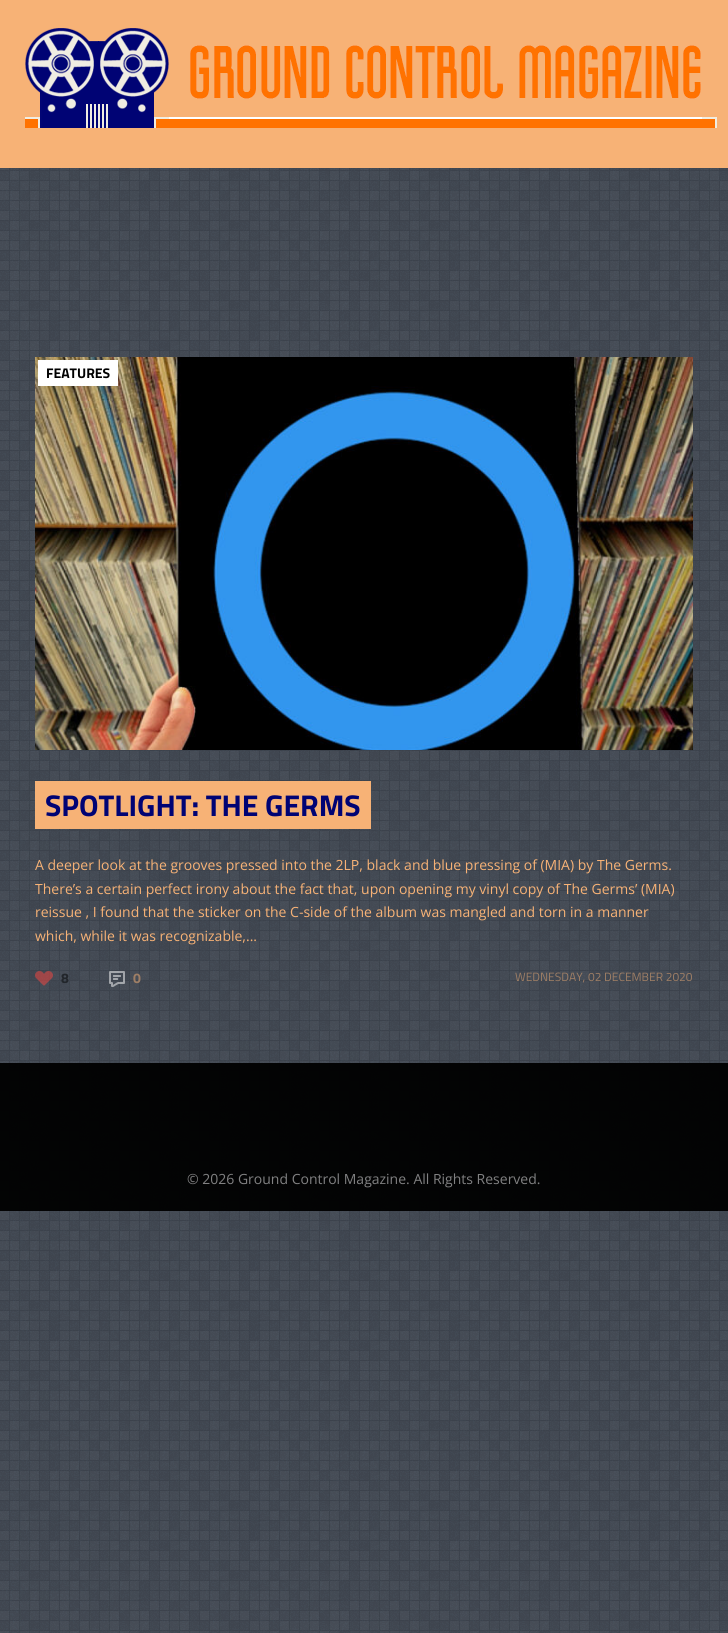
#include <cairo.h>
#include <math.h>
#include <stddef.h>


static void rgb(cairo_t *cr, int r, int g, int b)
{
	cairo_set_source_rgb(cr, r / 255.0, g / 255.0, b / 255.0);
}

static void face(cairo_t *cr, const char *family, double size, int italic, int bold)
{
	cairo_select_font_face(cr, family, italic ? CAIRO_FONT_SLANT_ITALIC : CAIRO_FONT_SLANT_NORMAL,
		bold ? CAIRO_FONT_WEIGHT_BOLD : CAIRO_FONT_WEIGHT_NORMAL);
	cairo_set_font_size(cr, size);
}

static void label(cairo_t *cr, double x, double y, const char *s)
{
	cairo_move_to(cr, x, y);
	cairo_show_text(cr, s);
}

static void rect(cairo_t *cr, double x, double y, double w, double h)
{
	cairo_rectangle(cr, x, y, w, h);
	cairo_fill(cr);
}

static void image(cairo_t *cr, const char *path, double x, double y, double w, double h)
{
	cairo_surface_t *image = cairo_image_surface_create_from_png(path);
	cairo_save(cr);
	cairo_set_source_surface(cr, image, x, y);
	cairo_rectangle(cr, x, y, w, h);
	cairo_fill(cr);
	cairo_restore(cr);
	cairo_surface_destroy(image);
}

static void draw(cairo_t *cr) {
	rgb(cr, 255, 255, 255);
	cairo_paint(cr);
	image(cr, "image0.png", 0, 168, 728, 1465);
	rgb(cr, 247, 178, 118);
	rect(cr, 0, 0, 728, 168);
	image(cr, "image1.png", 25, 28, 692, 100);
	image(cr, "image2.png", 35, 357, 658, 393);
	rgb(cr, 255, 255, 255);
	rect(cr, 38, 360, 80, 26);
	face(cr, "Titillium Web", 14, 0, 1);
	rgb(cr, 0, 0, 0);
	label(cr, 46, 378, "FEATURES");
	rgb(cr, 247, 178, 118);
	rect(cr, 35, 781, 336, 48);
	face(cr, "Titillium Web", 30, 0, 1);
	rgb(cr, 0, 3, 116);
	label(cr, 45, 816, "SPOTLIGHT: THE GERMS");
	face(cr, "Open Sans", 14, 0, 0);
	rgb(cr, 247, 178, 118);
	label(cr, 35, 870, "A deeper look at the grooves pressed into the 2LP, black and blue pressing of (MIA) by The Germs.");
	label(cr, 35, 894, "There’s a certain perfect irony about the fact that, upon opening my vinyl copy of The Germs’ (MIA)");
	label(cr, 35, 917, "reissue , I found that the sticker on the C-side of the album was mangled and torn in a manner");
	label(cr, 35, 941, "which, while it was recognizable,...");
	image(cr, "image3.png", 35, 971, 18, 15);
	face(cr, "Titillium Web", 14, 0, 1);
	rgb(cr, 34, 38, 43);
	label(cr, 61, 983, "8");
	image(cr, "image4.png", 109, 971, 16, 16);
	rgb(cr, 158, 126, 101);
	label(cr, 133, 983, "0");
	face(cr, "Titillium Web", 12, 0, 0);
	label(cr, 515, 981, "WEDNESDAY, 02 DECEMBER 2020");
	cairo_set_source_rgba(cr, 0, 0, 0, 0.95);
	rect(cr, 0, 1063, 728, 84);
	rect(cr, 0, 1147, 728, 64);
	face(cr, "Open Sans", 14, 0, 0);
	rgb(cr, 129, 129, 130);
	label(cr, 187, 1184, "© 2026 Ground Control Magazine. All Rights Reserved.");
}

int main(void) {
	cairo_surface_t *surface = cairo_image_surface_create(CAIRO_FORMAT_RGB24, 728, 1633);
	cairo_t *cr = cairo_create(surface);
	cairo_font_options_t *options = cairo_font_options_create();
	cairo_font_options_set_hint_metrics(options, CAIRO_HINT_METRICS_OFF);
	cairo_font_options_set_hint_style(options, CAIRO_HINT_STYLE_NONE);
	cairo_set_font_options(cr, options);
	cairo_set_miter_limit(cr, 4);
	draw(cr);
	cairo_surface_write_to_png(surface, "render.png");
	cairo_font_options_destroy(options);
	cairo_destroy(cr);
	cairo_surface_destroy(surface);
	return 0;
}
